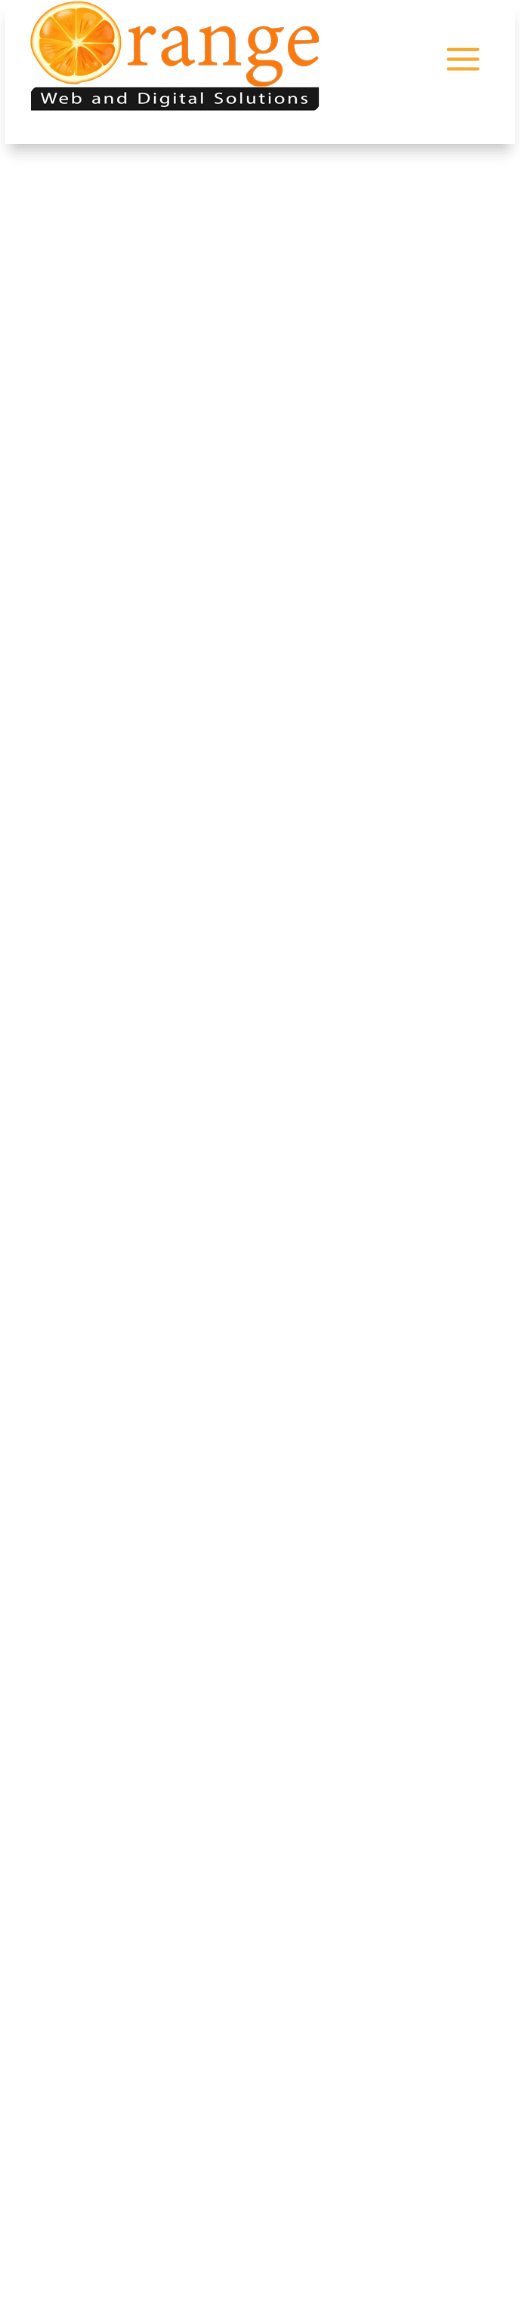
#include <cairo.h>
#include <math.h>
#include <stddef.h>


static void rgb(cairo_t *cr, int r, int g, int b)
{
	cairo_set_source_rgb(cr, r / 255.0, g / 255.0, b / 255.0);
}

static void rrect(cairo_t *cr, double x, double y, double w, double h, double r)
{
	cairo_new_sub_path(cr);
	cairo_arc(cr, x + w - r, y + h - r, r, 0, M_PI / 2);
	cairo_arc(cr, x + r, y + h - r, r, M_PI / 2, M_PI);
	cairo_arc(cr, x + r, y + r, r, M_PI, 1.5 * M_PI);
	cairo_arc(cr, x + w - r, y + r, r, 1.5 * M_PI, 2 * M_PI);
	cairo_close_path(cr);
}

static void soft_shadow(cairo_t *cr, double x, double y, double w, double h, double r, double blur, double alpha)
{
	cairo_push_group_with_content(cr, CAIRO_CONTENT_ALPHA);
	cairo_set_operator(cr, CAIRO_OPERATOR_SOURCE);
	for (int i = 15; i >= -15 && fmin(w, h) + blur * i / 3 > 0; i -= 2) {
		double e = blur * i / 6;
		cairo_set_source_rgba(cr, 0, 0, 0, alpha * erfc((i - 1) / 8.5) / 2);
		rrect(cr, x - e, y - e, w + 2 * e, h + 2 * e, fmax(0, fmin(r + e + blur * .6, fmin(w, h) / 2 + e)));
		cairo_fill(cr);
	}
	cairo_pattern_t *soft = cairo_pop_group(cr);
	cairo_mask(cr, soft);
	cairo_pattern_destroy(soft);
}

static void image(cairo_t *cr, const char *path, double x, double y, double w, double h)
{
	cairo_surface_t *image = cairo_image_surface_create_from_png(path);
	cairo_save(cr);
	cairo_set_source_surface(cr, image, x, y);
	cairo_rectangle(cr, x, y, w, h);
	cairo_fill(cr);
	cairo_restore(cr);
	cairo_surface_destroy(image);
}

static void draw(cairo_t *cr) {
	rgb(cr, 255, 255, 255);
	cairo_paint(cr);
	cairo_save(cr);
	cairo_set_fill_rule(cr, CAIRO_FILL_RULE_EVEN_ODD);
	cairo_new_path(cr);
	cairo_move_to(cr, 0, 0);
	cairo_line_to(cr, 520, 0);
	cairo_line_to(cr, 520, 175);
	cairo_line_to(cr, 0, 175);
	cairo_close_path(cr);
	cairo_move_to(cr, 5, 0);
	cairo_line_to(cr, 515, 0);
	cairo_line_to(cr, 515, 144);
	cairo_line_to(cr, 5, 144);
	cairo_close_path(cr);
	cairo_clip(cr);
	rgb(cr, 0, 0, 0);
	soft_shadow(cr, 14, 21, 492, 126, 0, 9, 0.3);
	cairo_restore(cr);
	image(cr, "image0.png", 30, 0, 290, 111);
	image(cr, "image1.png", 446, 47, 34, 24);
}

int main(void) {
	cairo_surface_t *surface = cairo_image_surface_create(CAIRO_FORMAT_RGB24, 520, 2303);
	cairo_t *cr = cairo_create(surface);
	cairo_font_options_t *options = cairo_font_options_create();
	cairo_font_options_set_hint_metrics(options, CAIRO_HINT_METRICS_OFF);
	cairo_font_options_set_hint_style(options, CAIRO_HINT_STYLE_NONE);
	cairo_set_font_options(cr, options);
	cairo_set_miter_limit(cr, 4);
	draw(cr);
	cairo_surface_write_to_png(surface, "render.png");
	cairo_font_options_destroy(options);
	cairo_destroy(cr);
	cairo_surface_destroy(surface);
	return 0;
}
